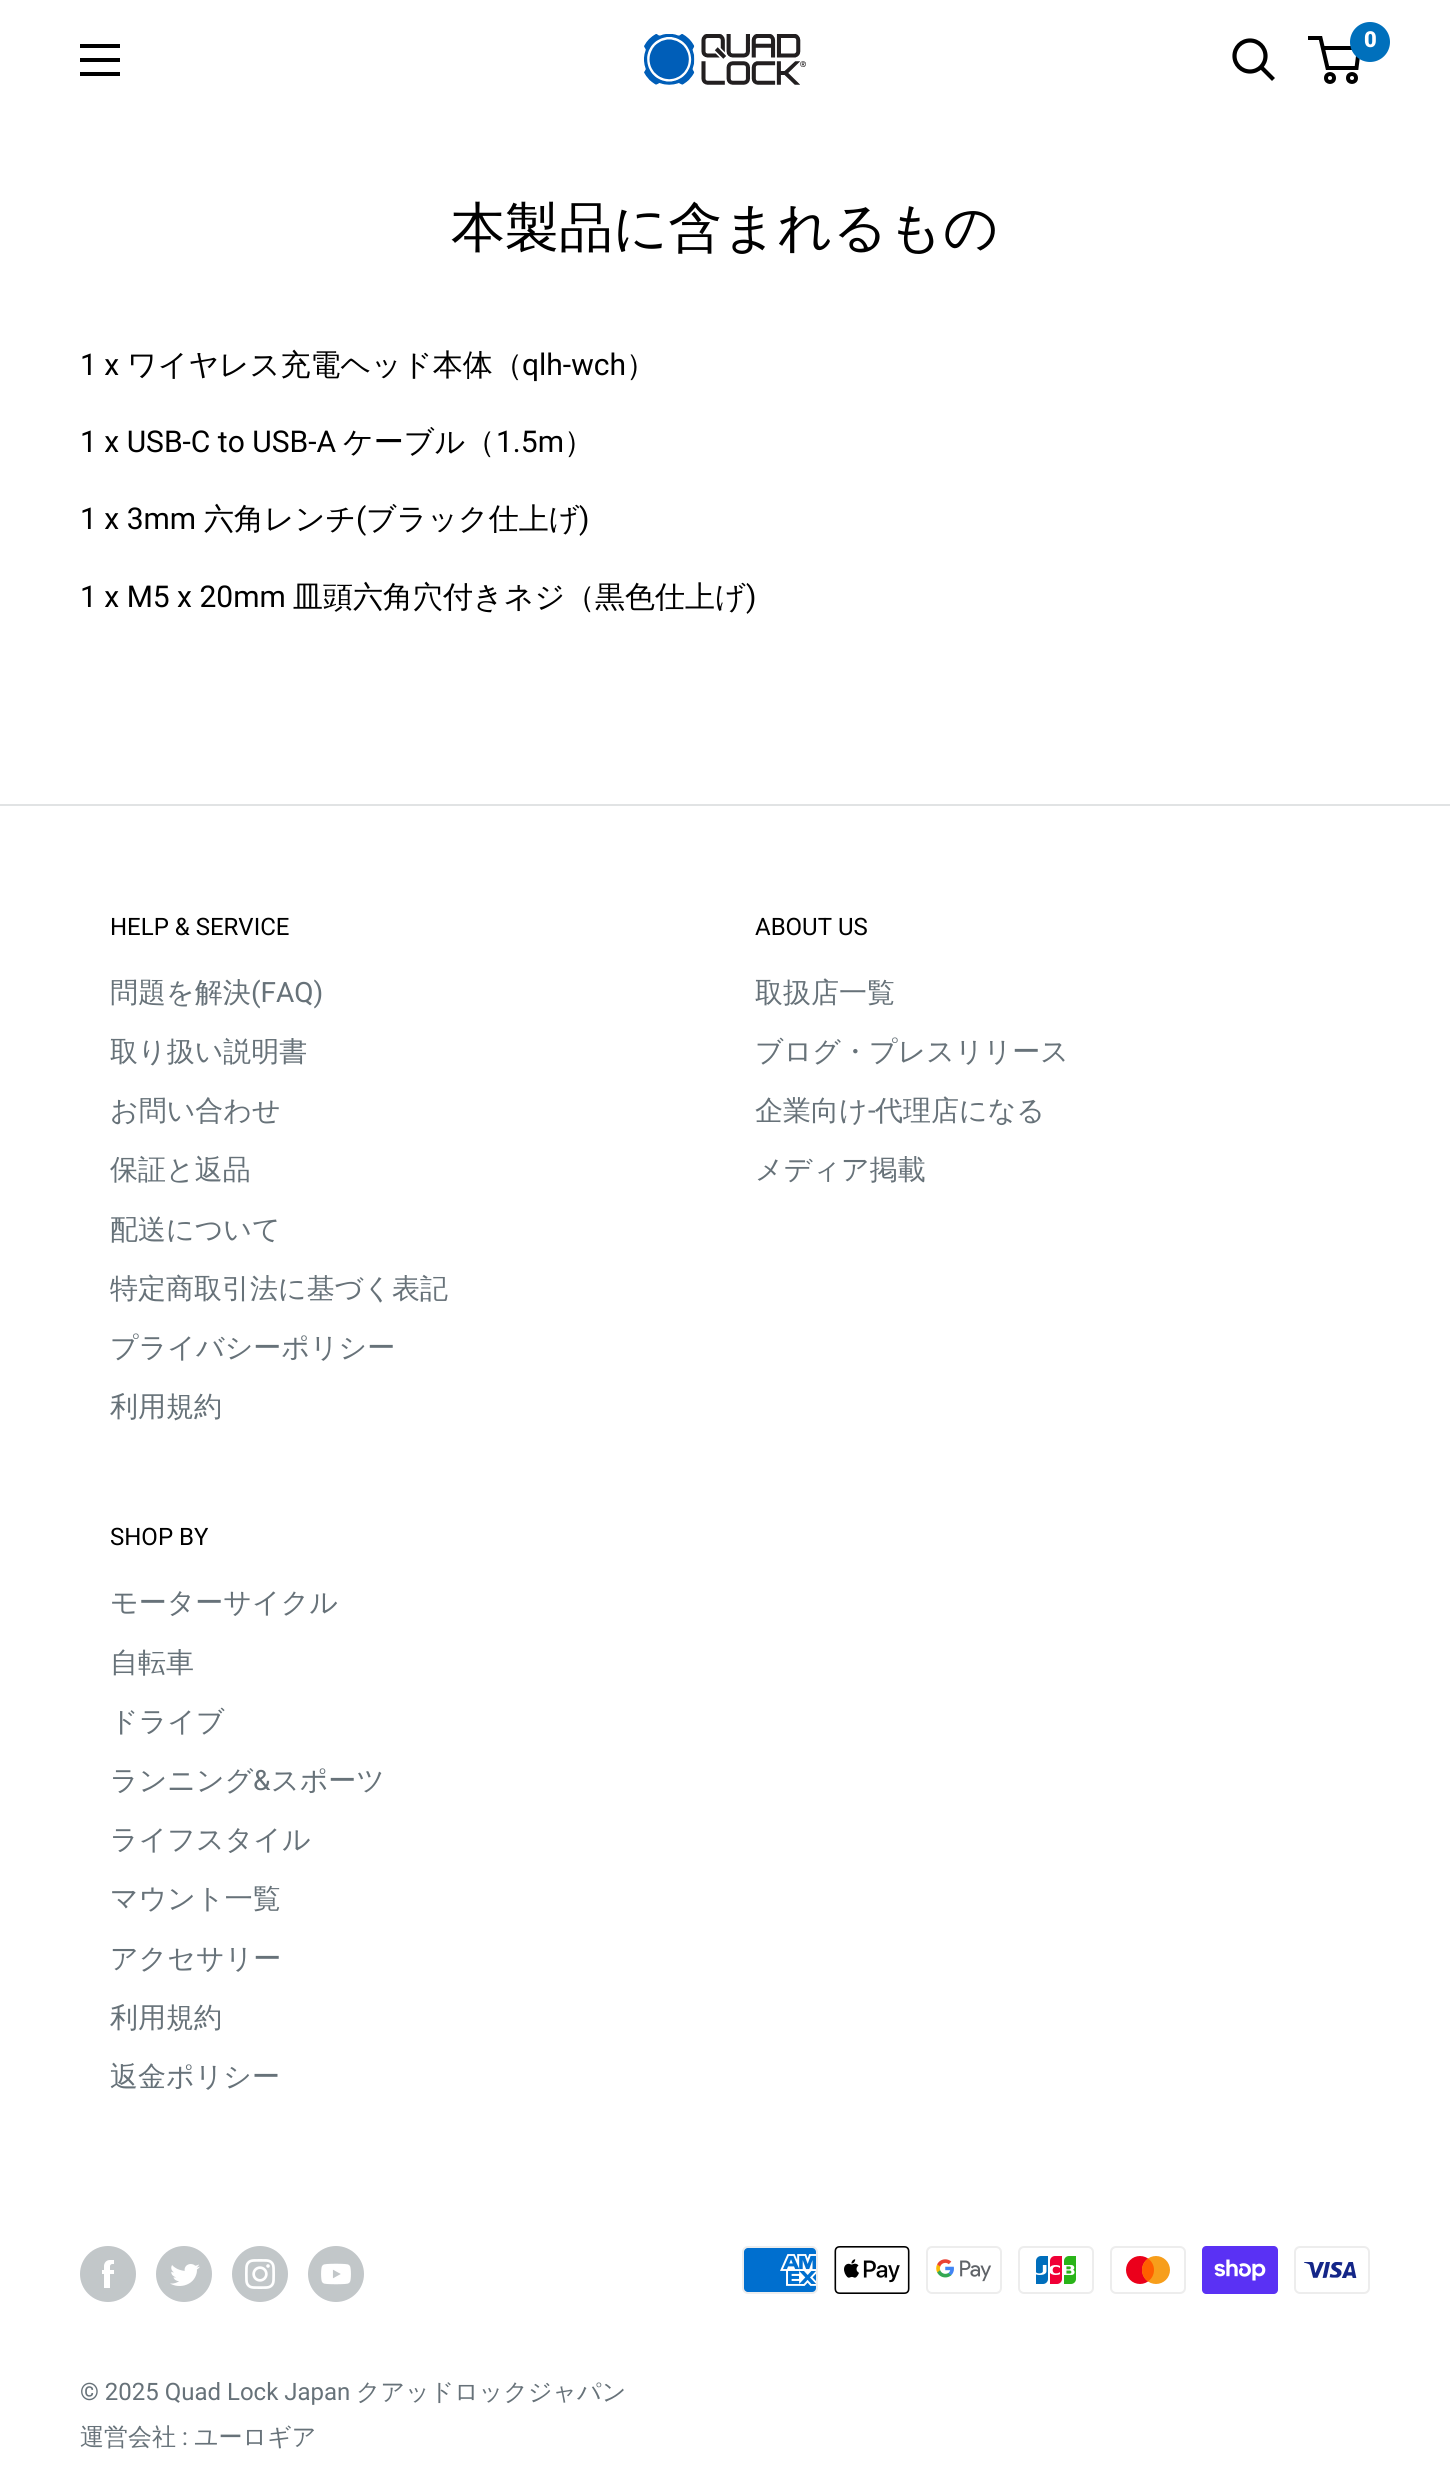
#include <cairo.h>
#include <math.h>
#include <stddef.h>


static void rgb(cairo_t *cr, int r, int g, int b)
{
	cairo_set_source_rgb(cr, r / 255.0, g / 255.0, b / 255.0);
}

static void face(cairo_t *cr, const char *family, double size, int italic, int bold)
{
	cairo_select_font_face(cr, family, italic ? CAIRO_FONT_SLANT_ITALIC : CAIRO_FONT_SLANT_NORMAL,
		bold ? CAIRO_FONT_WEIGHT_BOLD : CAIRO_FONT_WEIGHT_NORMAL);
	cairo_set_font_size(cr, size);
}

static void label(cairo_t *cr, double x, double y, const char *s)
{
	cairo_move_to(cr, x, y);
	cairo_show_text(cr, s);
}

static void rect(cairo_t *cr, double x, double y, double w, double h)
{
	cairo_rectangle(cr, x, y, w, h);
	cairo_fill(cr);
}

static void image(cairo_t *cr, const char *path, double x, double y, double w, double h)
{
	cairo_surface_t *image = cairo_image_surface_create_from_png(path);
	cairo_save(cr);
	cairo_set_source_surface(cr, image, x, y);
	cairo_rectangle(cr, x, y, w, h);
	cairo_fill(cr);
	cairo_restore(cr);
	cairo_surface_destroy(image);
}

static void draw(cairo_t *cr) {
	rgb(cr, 255, 255, 255);
	cairo_paint(cr);
	rgb(cr, 0, 0, 0);
	cairo_set_fill_rule(cr, CAIRO_FILL_RULE_EVEN_ODD);
	cairo_new_path(cr);
	cairo_move_to(cr, 80, 72);
	cairo_line_to(cr, 120, 72);
	cairo_line_to(cr, 120, 76);
	cairo_line_to(cr, 80, 76);
	cairo_close_path(cr);
	cairo_move_to(cr, 80, 44);
	cairo_line_to(cr, 120, 44);
	cairo_line_to(cr, 120, 48);
	cairo_line_to(cr, 80, 48);
	cairo_close_path(cr);
	cairo_move_to(cr, 80, 58);
	cairo_line_to(cr, 120, 58);
	cairo_line_to(cr, 120, 62);
	cairo_line_to(cr, 80, 62);
	cairo_close_path(cr);
	cairo_fill(cr);
	image(cr, "image0.png", 644, 34, 162, 51);
	cairo_new_path(cr);
	cairo_move_to(cr, 1272, 78);
	cairo_line_to(cr, 1261.5, 67.5);
	cairo_set_line_width(cr, 4.2);
	cairo_set_line_cap(cr, CAIRO_LINE_CAP_SQUARE);
	cairo_stroke(cr);
	cairo_arc(cr, 1250, 56, 15.5, 0, 2 * M_PI);
	cairo_set_line_cap(cr, CAIRO_LINE_CAP_BUTT);
	cairo_stroke(cr);
	cairo_arc(cr, 1330, 78, 4, 0, 2 * M_PI);
	cairo_set_line_width(cr, 4);
	cairo_stroke(cr);
	cairo_arc(cr, 1352, 78, 4, 0, 2 * M_PI);
	cairo_stroke(cr);
	cairo_new_path(cr);
	cairo_move_to(cr, 1322.5, 48);
	cairo_line_to(cr, 1359, 48);
	cairo_line_to(cr, 1356.5, 68);
	cairo_line_to(cr, 1327.5, 68);
	cairo_line_to(cr, 1320.5, 38);
	cairo_line_to(cr, 1308, 38);
	cairo_stroke(cr);
	rgb(cr, 0, 112, 188);
	cairo_arc(cr, 1370, 42, 20, 0, 2 * M_PI);
	cairo_fill(cr);
	face(cr, "Roboto Black", 22, 0, 0);
	rgb(cr, 255, 255, 255);
	label(cr, 1364, 47, "0");
	face(cr, "WenQuanYi Zen Hei Medium", 54, 0, 0);
	rgb(cr, 0, 0, 0);
	label(cr, 451, 246, "本製品に含まれるもの");
	face(cr, "Roboto", 30, 0, 0);
	label(cr, 80, 375, "1 x");
	face(cr, "WenQuanYi Zen Hei Medium", 30, 0, 0);
	label(cr, 127, 375, "ワイヤレス充電ヘッド本体（");
	face(cr, "Roboto", 30, 0, 0);
	label(cr, 522, 375, "qlh-wch");
	face(cr, "WenQuanYi Zen Hei Medium", 30, 0, 0);
	label(cr, 626, 375, "）");
	face(cr, "Roboto", 30, 0, 0);
	label(cr, 80, 452, "1 x USB-C to USB-A");
	face(cr, "WenQuanYi Zen Hei Medium", 30, 0, 0);
	label(cr, 343, 452, "ケーブル（");
	face(cr, "Roboto", 30, 0, 0);
	label(cr, 496, 452, "1.5m");
	face(cr, "WenQuanYi Zen Hei Medium", 30, 0, 0);
	label(cr, 564, 452, "）");
	face(cr, "Roboto", 30, 0, 0);
	label(cr, 80, 529, "1 x 3mm");
	face(cr, "WenQuanYi Zen Hei Medium", 30, 0, 0);
	label(cr, 204, 529, "六角レンチ");
	face(cr, "Roboto", 30, 0, 0);
	label(cr, 356, 529, "(");
	face(cr, "WenQuanYi Zen Hei Medium", 30, 0, 0);
	label(cr, 366, 529, "ブラック仕上げ");
	face(cr, "Roboto", 30, 0, 0);
	label(cr, 579, 529, ")");
	label(cr, 80, 607, "1 x M5 x 20mm");
	face(cr, "WenQuanYi Zen Hei Medium", 30, 0, 0);
	label(cr, 293, 607, "皿頭六角穴付きネジ（黒色仕上げ");
	face(cr, "Roboto", 30, 0, 0);
	label(cr, 746, 607, ")");
	rgb(cr, 225, 227, 228);
	rect(cr, 0, 804, 1450, 2);
	face(cr, "Roboto", 24, 0, 0);
	rgb(cr, 0, 0, 0);
	label(cr, 110, 935, "HELP & SERVICE");
	face(cr, "WenQuanYi Zen Hei Medium", 28, 0, 0);
	rgb(cr, 103, 114, 121);
	label(cr, 110, 1002, "問題を解決");
	face(cr, "Roboto", 28, 0, 0);
	label(cr, 251, 1002, "(FAQ)");
	face(cr, "WenQuanYi Zen Hei Medium", 28, 0, 0);
	label(cr, 110, 1061, "取り扱い説明書");
	label(cr, 110, 1120, "お問い合わせ");
	label(cr, 110, 1179, "保証と返品");
	label(cr, 110, 1239, "配送について");
	label(cr, 110, 1298, "特定商取引法に基づく表記");
	label(cr, 110, 1357, "プライバシーポリシー");
	label(cr, 110, 1416, "利用規約");
	face(cr, "Roboto", 24, 0, 0);
	rgb(cr, 0, 0, 0);
	label(cr, 755, 935, "ABOUT US");
	face(cr, "WenQuanYi Zen Hei Medium", 28, 0, 0);
	rgb(cr, 103, 114, 121);
	label(cr, 755, 1002, "取扱店一覧");
	label(cr, 755, 1061, "ブログ・プレスリリース");
	label(cr, 755, 1120, "企業向け");
	face(cr, "Roboto", 28, 0, 0);
	label(cr, 868, 1120, "-");
	face(cr, "WenQuanYi Zen Hei Medium", 28, 0, 0);
	label(cr, 875, 1120, "代理店になる");
	label(cr, 755, 1179, "メディア掲載");
	face(cr, "Roboto", 24, 0, 0);
	rgb(cr, 0, 0, 0);
	label(cr, 110, 1545, "SHOP BY");
	face(cr, "WenQuanYi Zen Hei Medium", 28, 0, 0);
	rgb(cr, 103, 114, 121);
	label(cr, 110, 1612, "モーターサイクル");
	label(cr, 110, 1672, "自転車");
	label(cr, 110, 1731, "ドライブ");
	label(cr, 110, 1790, "ランニング");
	face(cr, "Roboto", 28, 0, 0);
	label(cr, 253, 1790, "&");
	face(cr, "WenQuanYi Zen Hei Medium", 28, 0, 0);
	label(cr, 271, 1790, "スポーツ");
	label(cr, 110, 1849, "ライフスタイル");
	label(cr, 110, 1908, "マウント一覧");
	label(cr, 110, 1968, "アクセサリー");
	label(cr, 110, 2027, "利用規約");
	label(cr, 110, 2086, "返金ポリシー");
	image(cr, "image1.png", 80, 2246, 56, 56);
	image(cr, "image2.png", 156, 2246, 56, 56);
	image(cr, "image3.png", 232, 2246, 56, 56);
	image(cr, "image4.png", 308, 2246, 56, 56);
	image(cr, "image5.png", 742, 2246, 76, 48);
	image(cr, "image6.png", 834, 2246, 76, 48);
	image(cr, "image7.png", 926, 2246, 76, 48);
	image(cr, "image8.png", 1018, 2246, 76, 48);
	image(cr, "image9.png", 1110, 2246, 76, 48);
	image(cr, "image10.png", 1202, 2246, 76, 48);
	image(cr, "image11.png", 1294, 2246, 76, 48);
	face(cr, "Roboto", 24, 0, 0);
	label(cr, 80, 2400, "© 2025 Quad Lock Japan");
	face(cr, "WenQuanYi Zen Hei Medium", 24, 0, 0);
	label(cr, 356, 2400, "クアッドロックジャパン");
	label(cr, 80, 2445, "運営会社");
	face(cr, "Roboto", 24, 0, 0);
	label(cr, 182, 2445, ":");
	face(cr, "WenQuanYi Zen Hei Medium", 24, 0, 0);
	label(cr, 194, 2445, "ユーロギア");
}

int main(void) {
	cairo_surface_t *surface = cairo_image_surface_create(CAIRO_FORMAT_RGB24, 1450, 2475);
	cairo_t *cr = cairo_create(surface);
	cairo_font_options_t *options = cairo_font_options_create();
	cairo_font_options_set_hint_metrics(options, CAIRO_HINT_METRICS_OFF);
	cairo_font_options_set_hint_style(options, CAIRO_HINT_STYLE_NONE);
	cairo_set_font_options(cr, options);
	cairo_set_miter_limit(cr, 4);
	draw(cr);
	cairo_surface_write_to_png(surface, "render.png");
	cairo_font_options_destroy(options);
	cairo_destroy(cr);
	cairo_surface_destroy(surface);
	return 0;
}
